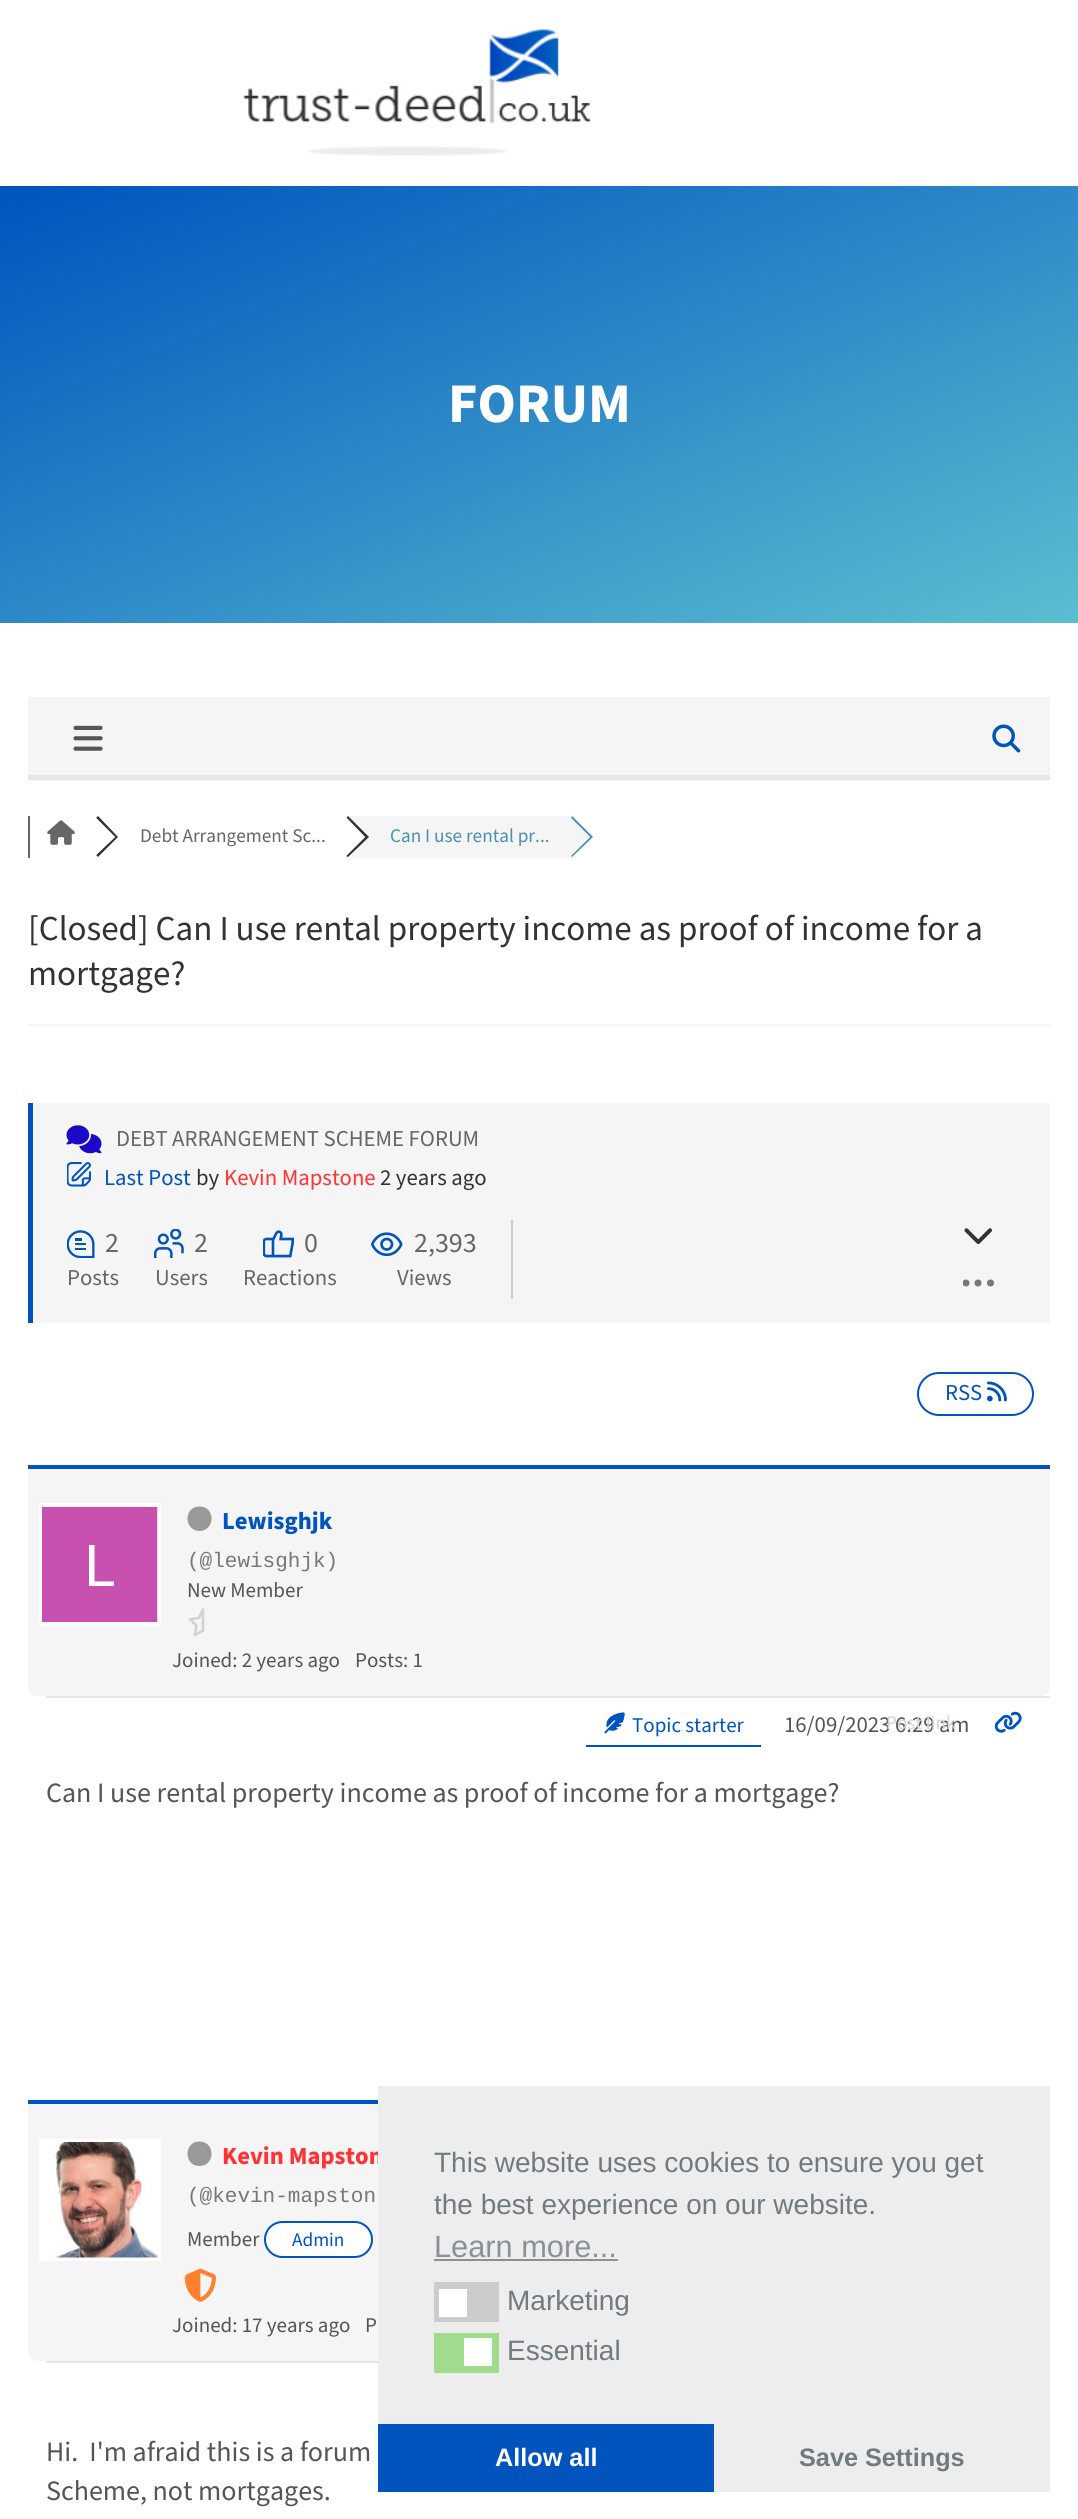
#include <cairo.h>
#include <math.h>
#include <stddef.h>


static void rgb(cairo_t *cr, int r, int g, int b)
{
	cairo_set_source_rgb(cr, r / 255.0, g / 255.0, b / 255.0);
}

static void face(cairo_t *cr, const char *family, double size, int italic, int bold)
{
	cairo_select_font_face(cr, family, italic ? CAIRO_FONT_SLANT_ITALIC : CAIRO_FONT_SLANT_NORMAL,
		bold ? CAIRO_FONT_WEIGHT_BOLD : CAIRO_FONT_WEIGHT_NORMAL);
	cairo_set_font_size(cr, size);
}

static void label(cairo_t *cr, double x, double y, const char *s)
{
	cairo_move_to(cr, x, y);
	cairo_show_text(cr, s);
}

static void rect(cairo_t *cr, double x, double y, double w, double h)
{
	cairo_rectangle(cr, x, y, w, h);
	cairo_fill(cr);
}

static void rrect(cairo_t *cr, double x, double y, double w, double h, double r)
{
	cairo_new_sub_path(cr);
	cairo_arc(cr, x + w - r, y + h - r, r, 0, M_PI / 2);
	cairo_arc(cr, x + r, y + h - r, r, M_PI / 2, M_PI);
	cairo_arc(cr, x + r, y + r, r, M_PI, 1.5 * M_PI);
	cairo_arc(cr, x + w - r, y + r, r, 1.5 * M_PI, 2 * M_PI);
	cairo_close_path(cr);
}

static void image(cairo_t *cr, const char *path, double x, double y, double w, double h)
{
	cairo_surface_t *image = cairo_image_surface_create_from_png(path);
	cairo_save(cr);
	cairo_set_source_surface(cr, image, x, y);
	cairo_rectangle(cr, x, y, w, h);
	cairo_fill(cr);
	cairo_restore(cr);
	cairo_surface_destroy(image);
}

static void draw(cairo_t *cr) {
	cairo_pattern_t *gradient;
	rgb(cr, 255, 255, 255);
	cairo_paint(cr);
	image(cr, "image0.png", 243, 29, 348, 127);
	gradient = cairo_pattern_create_linear(387, 29, 691, 780);
	cairo_pattern_add_color_stop_rgba(gradient, 0, 0.004, 0.325, 0.745, 1);
	cairo_pattern_add_color_stop_rgba(gradient, 1, 0.353, 0.749, 0.816, 1);
	cairo_set_source(cr, gradient);
	cairo_pattern_destroy(gradient);
	rect(cr, 0, 186, 1078, 437);
	face(cr, "Source Sans Pro", 56, 0, 1);
	rgb(cr, 255, 255, 255);
	label(cr, 448, 422, "FORUM");
	rgb(cr, 245, 245, 245);
	rect(cr, 28, 697, 1022, 84);
	rgb(cr, 230, 230, 230);
	rect(cr, 28, 775, 1022, 5);
	image(cr, "image1.png", 73, 725, 30, 26);
	image(cr, "image2.png", 992, 724, 29, 29);
	rgb(cr, 102, 102, 102);
	rect(cr, 28, 816, 2, 42);
	image(cr, "image3.png", 47, 820, 28, 25);
	rgb(cr, 51, 51, 51);
	cairo_new_path(cr);
	cairo_move_to(cr, 98, 816);
	cairo_line_to(cr, 96, 818);
	cairo_line_to(cr, 115, 837);
	cairo_line_to(cr, 96, 855);
	cairo_line_to(cr, 98, 857);
	cairo_line_to(cr, 118, 837);
	cairo_close_path(cr);
	cairo_fill(cr);
	rgb(cr, 255, 255, 255);
	cairo_new_path(cr);
	cairo_move_to(cr, 94, 816);
	cairo_line_to(cr, 115, 837);
	cairo_line_to(cr, 94, 857);
	cairo_line_to(cr, 73, 837);
	cairo_close_path(cr);
	cairo_fill(cr);
	face(cr, "Source Sans Pro", 19.25, 0, 0);
	rgb(cr, 102, 102, 102);
	label(cr, 140, 842, "Debt Arrangement Sc...");
	rgb(cr, 245, 245, 245);
	rect(cr, 352, 816, 224, 42);
	rgb(cr, 51, 51, 51);
	cairo_new_path(cr);
	cairo_move_to(cr, 348, 816);
	cairo_line_to(cr, 346, 818);
	cairo_line_to(cr, 365, 837);
	cairo_line_to(cr, 346, 856);
	cairo_line_to(cr, 348, 857);
	cairo_line_to(cr, 369, 837);
	cairo_close_path(cr);
	cairo_fill(cr);
	rgb(cr, 255, 255, 255);
	cairo_new_path(cr);
	cairo_move_to(cr, 345, 816);
	cairo_line_to(cr, 365, 837);
	cairo_line_to(cr, 345, 857);
	cairo_line_to(cr, 324, 837);
	cairo_close_path(cr);
	cairo_fill(cr);
	rgb(cr, 74, 142, 179);
	label(cr, 390, 842, "Can I use rental pr...");
	cairo_new_path(cr);
	cairo_move_to(cr, 572, 816);
	cairo_line_to(cr, 571, 818);
	cairo_line_to(cr, 590, 837);
	cairo_line_to(cr, 571, 856);
	cairo_line_to(cr, 572, 857);
	cairo_line_to(cr, 593, 837);
	cairo_close_path(cr);
	cairo_fill(cr);
	rgb(cr, 245, 245, 245);
	cairo_new_path(cr);
	cairo_move_to(cr, 569, 816);
	cairo_line_to(cr, 590, 837);
	cairo_line_to(cr, 569, 857);
	cairo_line_to(cr, 548, 837);
	cairo_close_path(cr);
	cairo_fill(cr);
	face(cr, "Source Sans Pro", 35, 0, 0);
	rgb(cr, 51, 51, 51);
	label(cr, 28, 940, "[Closed] Can I use rental property income as proof of income for a");
	label(cr, 28, 985, "mortgage?");
	rgb(cr, 245, 245, 245);
	rect(cr, 28, 1024, 1022, 2);
	rect(cr, 33, 1103, 1017, 220);
	rgb(cr, 1, 83, 190);
	rect(cr, 28, 1103, 5, 220);
	image(cr, "image4.png", 66, 1125, 36, 29);
	face(cr, "Source Sans Pro", 22.75, 0, 0);
	rgb(cr, 102, 102, 102);
	label(cr, 116, 1146, "DEBT ARRANGEMENT SCHEME FORUM");
	image(cr, "image5.png", 67, 1162, 24, 25);
	rgb(cr, 1, 83, 190);
	label(cr, 104, 1185, "Last Post");
	rgb(cr, 51, 51, 51);
	label(cr, 196, 1185, "by");
	rgb(cr, 255, 51, 51);
	label(cr, 224, 1185, "Kevin Mapstone");
	rgb(cr, 51, 51, 51);
	label(cr, 380, 1185, "2 years ago");
	image(cr, "image6.png", 67, 1230, 28, 28);
	face(cr, "Source Sans Pro", 28, 0, 0);
	rgb(cr, 102, 102, 102);
	label(cr, 105, 1252, "2");
	face(cr, "Source Sans Pro", 22.75, 0, 0);
	label(cr, 67, 1285, "Posts");
	image(cr, "image7.png", 154, 1229, 30, 29);
	face(cr, "Source Sans Pro", 28, 0, 0);
	label(cr, 194, 1252, "2");
	face(cr, "Source Sans Pro", 22.75, 0, 0);
	label(cr, 155, 1285, "Users");
	image(cr, "image8.png", 263, 1230, 31, 28);
	face(cr, "Source Sans Pro", 28, 0, 0);
	label(cr, 304, 1252, "0");
	face(cr, "Source Sans Pro", 22.75, 0, 0);
	label(cr, 243, 1285, "Reactions");
	image(cr, "image9.png", 371, 1232, 32, 25);
	face(cr, "Source Sans Pro", 28, 0, 0);
	label(cr, 414, 1252, "2,393");
	face(cr, "Source Sans Pro", 22.75, 0, 0);
	label(cr, 397, 1285, "Views");
	rgb(cr, 204, 204, 204);
	rect(cr, 511, 1220, 2, 79);
	image(cr, "image10.png", 964, 1228, 28, 16);
	cairo_save(cr);
	cairo_rectangle(cr, 963, 1267, 31, 32);
	cairo_clip(cr);
	rgb(cr, 119, 119, 119);
	cairo_arc(cr, 966, 1283, 3.5, 0, 2 * M_PI);
	cairo_fill(cr);
	cairo_restore(cr);
	rgb(cr, 119, 119, 119);
	cairo_arc(cr, 978, 1283, 3.5, 0, 2 * M_PI);
	cairo_fill(cr);
	cairo_arc(cr, 990.5, 1283, 3.5, 0, 2 * M_PI);
	cairo_fill(cr);
	rrect(cr, 918, 1373, 115, 42, 21);
	rgb(cr, 1, 83, 190);
	cairo_stroke(cr);
	label(cr, 945, 1400, "RSS");
	image(cr, "image11.png", 987, 1381, 20, 21);
	rgb(cr, 245, 245, 245);
	cairo_new_path(cr);
	cairo_move_to(cr, 28, 1465);
	cairo_line_to(cr, 1050, 1465);
	cairo_line_to(cr, 1050, 1687);
	cairo_curve_to(cr, 1050, 1692, 1046, 1696, 1041, 1696);
	cairo_line_to(cr, 37, 1696);
	cairo_curve_to(cr, 32, 1696, 28, 1692, 28, 1687);
	cairo_close_path(cr);
	cairo_fill(cr);
	rgb(cr, 1, 83, 190);
	rect(cr, 28, 1465, 1022, 4);
	rgb(cr, 255, 255, 255);
	rect(cr, 39, 1503, 122, 123);
	image(cr, "image12.png", 42, 1507, 116, 115);
	rgb(cr, 153, 153, 153);
	cairo_new_path(cr);
	cairo_move_to(cr, 199.5, 1531);
	cairo_curve_to(cr, 215.5, 1530.5, 215.5, 1506.5, 199.5, 1506.5);
	cairo_curve_to(cr, 183.5, 1506.5, 183.5, 1530.5, 199.5, 1531);
	cairo_close_path(cr);
	cairo_fill(cr);
	face(cr, "Source Sans Pro", 24.5, 0, 1);
	rgb(cr, 1, 83, 190);
	label(cr, 222, 1529, "Lewisghjk");
	face(cr, "Liberation Mono", 21, 0, 0);
	rgb(cr, 119, 119, 119);
	label(cr, 187, 1567, "(@lewisghjk)");
	face(cr, "Source Sans Pro", 21, 0, 0);
	rgb(cr, 85, 85, 85);
	label(cr, 187, 1597, "New Member");
	image(cr, "image13.png", 188, 1608, 17, 29);
	label(cr, 172, 1667, "Joined: 2 years ago");
	label(cr, 355, 1667, "Posts: 1");
	rgb(cr, 230, 230, 230);
	rect(cr, 46, 1696, 1004, 2);
	face(cr, "Source Sans Pro", 22.75, 0, 0);
	rgb(cr, 85, 85, 85);
	label(cr, 784, 1732, "16/09/2023 6:29 am");
	rgb(cr, 1, 83, 190);
	rect(cr, 586, 1745, 175, 2);
	image(cr, "image14.png", 604, 1712, 21, 22);
	face(cr, "Source Sans Pro", 21, 0, 0);
	label(cr, 632, 1732, "Topic starter");
	face(cr, "Source Sans Pro", 19.25, 0, 0);
	rgb(cr, 212, 212, 212);
	label(cr, 886, 1729, "Post link");
	image(cr, "image15.png", 994, 1711, 28, 22);
	face(cr, "Source Sans Pro", 28, 0, 0);
	rgb(cr, 85, 85, 85);
	label(cr, 46, 1802, "Can I use rental property income as proof of income for a mortgage?");
	rgb(cr, 245, 245, 245);
	cairo_new_path(cr);
	cairo_move_to(cr, 28, 2100);
	cairo_line_to(cr, 1050, 2100);
	cairo_line_to(cr, 1050, 2352);
	cairo_curve_to(cr, 1050, 2357, 1046, 2361, 1041, 2361);
	cairo_line_to(cr, 37, 2361);
	cairo_curve_to(cr, 32, 2361, 28, 2357, 28, 2352);
	cairo_close_path(cr);
	cairo_fill(cr);
	rgb(cr, 1, 83, 190);
	rect(cr, 28, 2100, 350, 4);
	rgb(cr, 255, 255, 255);
	rect(cr, 39, 2139, 122, 122);
	image(cr, "image16.png", 54, 2142, 104, 116);
	rgb(cr, 153, 153, 153);
	cairo_new_path(cr);
	cairo_move_to(cr, 199.5, 2166);
	cairo_curve_to(cr, 215.5, 2166, 215.5, 2141.5, 199.5, 2141.5);
	cairo_curve_to(cr, 183.5, 2141.5, 183.5, 2166, 199.5, 2166);
	cairo_close_path(cr);
	cairo_fill(cr);
	face(cr, "Source Sans Pro", 24.5, 0, 1);
	rgb(cr, 255, 51, 51);
	label(cr, 222, 2164, "Kevin Mapston");
	face(cr, "Liberation Mono", 21, 0, 0);
	rgb(cr, 119, 119, 119);
	label(cr, 187, 2202, "(@kevin-mapston");
	face(cr, "Source Sans Pro", 21, 0, 0);
	rgb(cr, 85, 85, 85);
	label(cr, 187, 2246, "Member");
	rgb(cr, 255, 255, 255);
	rrect(cr, 265, 2222, 107, 35, 17.5);
	cairo_fill_preserve(cr);
	rgb(cr, 1, 83, 190);
	cairo_stroke(cr);
	face(cr, "Source Sans Pro", 19.25, 0, 0);
	label(cr, 292, 2246, "Admin");
	image(cr, "image17.png", 184, 2268, 32, 34);
	face(cr, "Source Sans Pro", 21, 0, 0);
	rgb(cr, 85, 85, 85);
	label(cr, 172, 2332, "Joined: 17 years ago");
	label(cr, 365, 2332, "P");
	rgb(cr, 230, 230, 230);
	rect(cr, 46, 2361, 332, 2);
	face(cr, "Source Sans Pro", 28, 0, 0);
	rgb(cr, 85, 85, 85);
	label(cr, 46, 2461, "Hi.  I'm afraid this is a forum");
	label(cr, 46, 2500, "Scheme, not mortgages.");
	rgb(cr, 237, 237, 237);
	rect(cr, 378, 2086, 672, 406);
	face(cr, "Liberation Sans", 28, 0, 0);
	rgb(cr, 111, 122, 129);
	label(cr, 434, 2172, "This website uses cookies to ensure you get");
	label(cr, 434, 2214, "the best experience on our website.");
	face(cr, "Liberation Sans", 30.75, 0, 0);
	rgb(cr, 136, 145, 151);
	label(cr, 434, 2257, "Learn more...");
	rect(cr, 434, 2259, 184, 2);
	rgb(cr, 204, 204, 204);
	rect(cr, 434, 2282, 65, 40);
	rgb(cr, 255, 255, 255);
	rect(cr, 439, 2289, 28, 28);
	face(cr, "Liberation Sans", 28, 0, 0);
	rgb(cr, 111, 122, 129);
	label(cr, 507, 2310, "Marketing");
	rgb(cr, 160, 219, 142);
	rect(cr, 434, 2333, 65, 40);
	rgb(cr, 255, 255, 255);
	rect(cr, 464, 2338, 28, 28);
	rgb(cr, 111, 122, 129);
	label(cr, 507, 2360, "Essential");
	rgb(cr, 1, 83, 190);
	rect(cr, 378, 2424, 336, 68);
	face(cr, "Liberation Sans", 25.25, 0, 1);
	rgb(cr, 255, 255, 255);
	label(cr, 495, 2466, "Allow all");
	rgb(cr, 111, 122, 129);
	label(cr, 799, 2466, "Save Settings");
}

int main(void) {
	cairo_surface_t *surface = cairo_image_surface_create(CAIRO_FORMAT_RGB24, 1078, 2519);
	cairo_t *cr = cairo_create(surface);
	cairo_font_options_t *options = cairo_font_options_create();
	cairo_font_options_set_hint_metrics(options, CAIRO_HINT_METRICS_OFF);
	cairo_font_options_set_hint_style(options, CAIRO_HINT_STYLE_NONE);
	cairo_set_font_options(cr, options);
	cairo_set_miter_limit(cr, 4);
	draw(cr);
	cairo_surface_write_to_png(surface, "render.png");
	cairo_font_options_destroy(options);
	cairo_destroy(cr);
	cairo_surface_destroy(surface);
	return 0;
}
